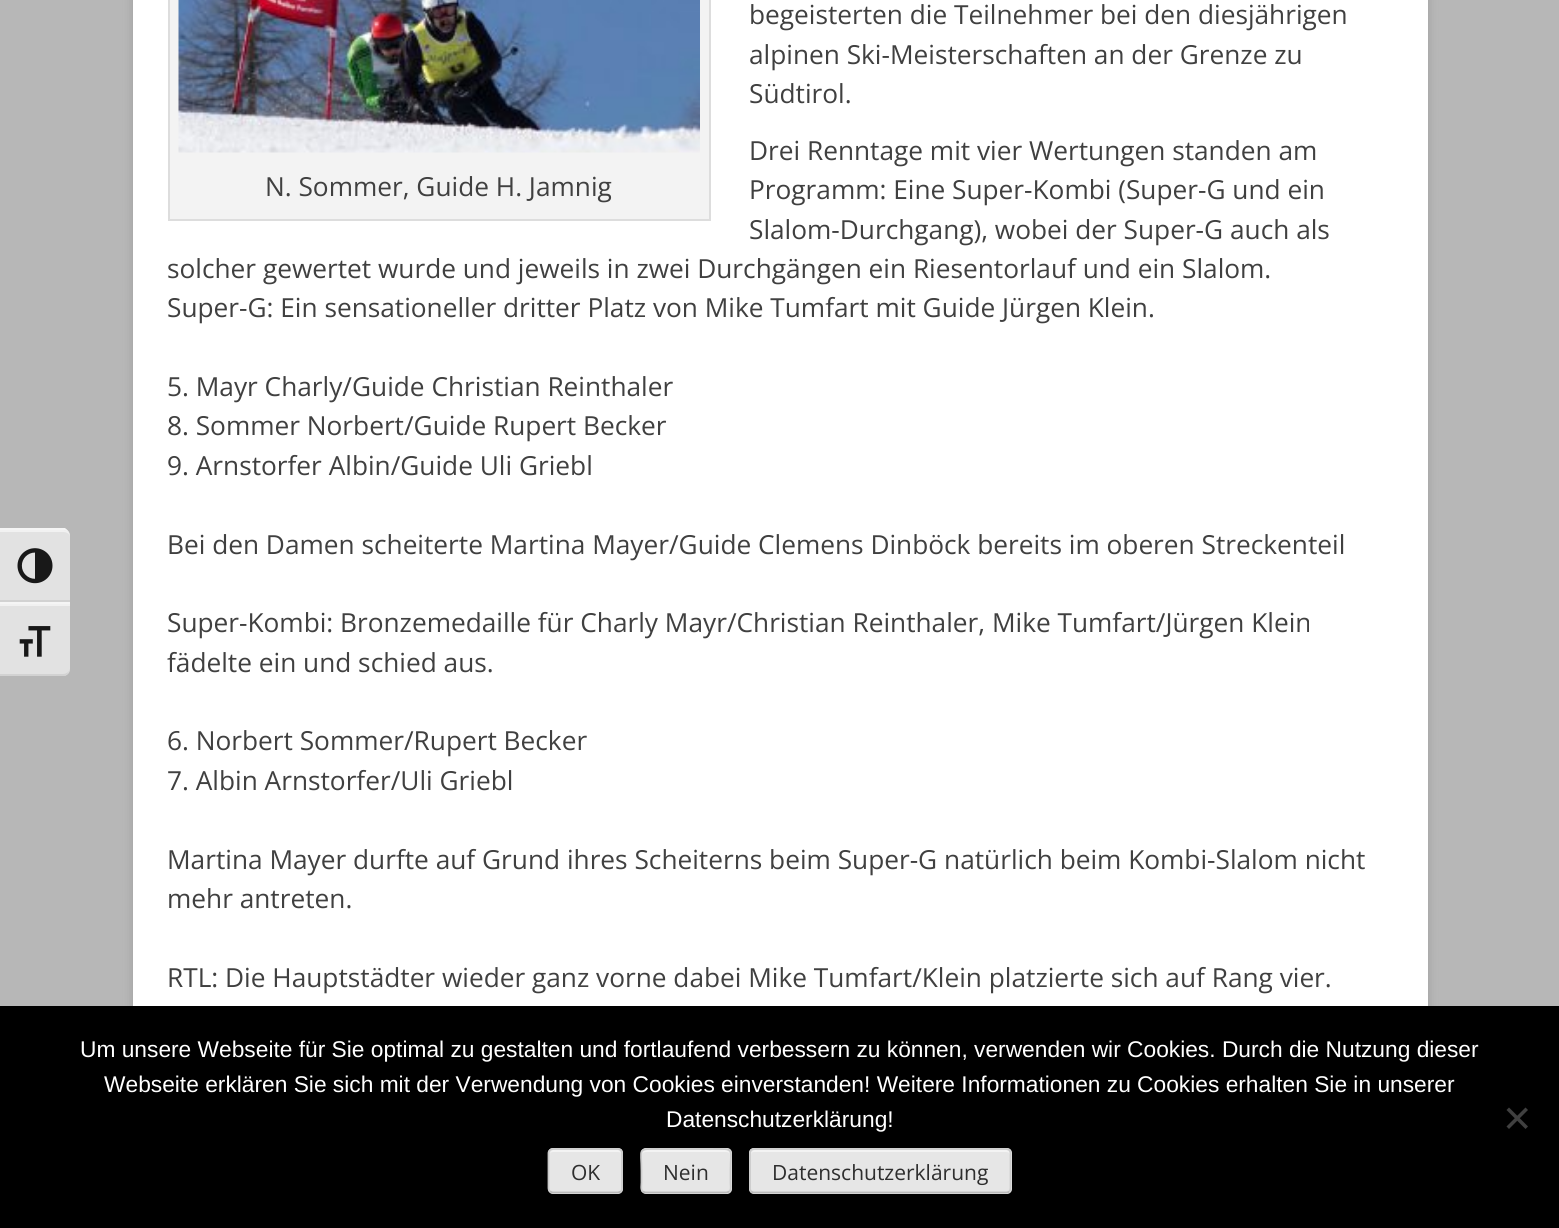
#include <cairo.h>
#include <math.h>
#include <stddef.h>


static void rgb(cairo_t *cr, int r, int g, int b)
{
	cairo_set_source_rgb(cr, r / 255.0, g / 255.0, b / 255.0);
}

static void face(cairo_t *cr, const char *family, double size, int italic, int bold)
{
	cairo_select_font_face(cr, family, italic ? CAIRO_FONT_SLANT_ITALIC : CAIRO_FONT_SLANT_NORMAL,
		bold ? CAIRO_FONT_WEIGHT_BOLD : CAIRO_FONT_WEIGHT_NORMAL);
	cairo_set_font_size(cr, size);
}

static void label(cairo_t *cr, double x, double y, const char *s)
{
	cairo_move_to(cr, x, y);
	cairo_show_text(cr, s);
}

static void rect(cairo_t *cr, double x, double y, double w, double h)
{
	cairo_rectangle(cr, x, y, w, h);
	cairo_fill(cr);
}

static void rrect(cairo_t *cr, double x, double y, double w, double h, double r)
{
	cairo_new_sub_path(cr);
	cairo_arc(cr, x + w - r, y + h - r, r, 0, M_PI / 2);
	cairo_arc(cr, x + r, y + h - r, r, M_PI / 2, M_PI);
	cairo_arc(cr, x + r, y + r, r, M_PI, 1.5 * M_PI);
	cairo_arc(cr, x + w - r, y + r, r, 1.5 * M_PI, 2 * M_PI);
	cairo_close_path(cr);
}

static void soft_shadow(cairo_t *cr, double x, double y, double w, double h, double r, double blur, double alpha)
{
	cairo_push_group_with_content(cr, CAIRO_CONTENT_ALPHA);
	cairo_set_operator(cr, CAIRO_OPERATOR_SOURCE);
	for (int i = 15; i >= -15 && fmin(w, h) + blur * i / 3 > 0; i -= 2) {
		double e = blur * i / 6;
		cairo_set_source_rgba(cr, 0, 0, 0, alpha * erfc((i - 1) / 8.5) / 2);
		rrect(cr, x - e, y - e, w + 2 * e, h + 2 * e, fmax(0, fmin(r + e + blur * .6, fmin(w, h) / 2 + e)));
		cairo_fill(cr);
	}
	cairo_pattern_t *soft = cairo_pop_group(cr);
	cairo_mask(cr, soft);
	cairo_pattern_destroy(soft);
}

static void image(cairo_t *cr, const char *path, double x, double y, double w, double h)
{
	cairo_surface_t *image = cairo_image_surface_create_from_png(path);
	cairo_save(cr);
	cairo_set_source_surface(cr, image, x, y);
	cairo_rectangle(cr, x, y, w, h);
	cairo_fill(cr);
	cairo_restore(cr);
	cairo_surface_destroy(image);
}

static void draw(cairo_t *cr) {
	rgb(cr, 183, 183, 183);
	cairo_paint(cr);
	rgb(cr, 226, 226, 226);
	cairo_new_path(cr);
	cairo_move_to(cr, 0, 529);
	cairo_line_to(cr, 63, 529);
	cairo_curve_to(cr, 67, 529, 70, 532, 70, 536);
	cairo_line_to(cr, 70, 602);
	cairo_line_to(cr, 0, 602);
	cairo_close_path(cr);
	cairo_fill(cr);
	cairo_set_source_rgba(cr, 1, 1, 1, 0.5);
	cairo_new_path(cr);
	cairo_move_to(cr, 0, 532);
	cairo_line_to(cr, 63, 532);
	cairo_curve_to(cr, 67, 532, 70, 534, 70, 537);
	cairo_line_to(cr, 70, 536);
	cairo_curve_to(cr, 70, 533, 67, 530, 63, 530);
	cairo_line_to(cr, 0, 530);
	cairo_close_path(cr);
	cairo_fill(cr);
	rgb(cr, 245, 245, 245);
	cairo_new_path(cr);
	cairo_move_to(cr, 0, 530);
	cairo_line_to(cr, 63, 530);
	cairo_curve_to(cr, 67, 530, 70, 533, 70, 536);
	cairo_curve_to(cr, 70, 533, 68, 530, 65, 528);
	cairo_line_to(cr, 0, 528);
	cairo_close_path(cr);
	cairo_fill(cr);
	rgb(cr, 210, 210, 210);
	rect(cr, 0, 600, 70, 2);
	image(cr, "image0.png", 17, 548, 36, 36);
	rgb(cr, 226, 226, 226);
	cairo_new_path(cr);
	cairo_move_to(cr, 0, 602);
	cairo_line_to(cr, 70, 602);
	cairo_line_to(cr, 70, 669);
	cairo_curve_to(cr, 70, 673, 67, 676, 63, 676);
	cairo_line_to(cr, 0, 676);
	cairo_close_path(cr);
	cairo_fill(cr);
	rgb(cr, 241, 241, 241);
	rect(cr, 0, 604, 70, 2);
	rgb(cr, 245, 245, 245);
	rect(cr, 0, 602, 70, 2);
	rgb(cr, 210, 210, 210);
	cairo_new_path(cr);
	cairo_move_to(cr, 65, 676);
	cairo_curve_to(cr, 68, 674, 70, 671, 70, 668);
	cairo_curve_to(cr, 70, 671, 67, 674, 63, 674);
	cairo_line_to(cr, 0, 674);
	cairo_line_to(cr, 0, 676);
	cairo_close_path(cr);
	cairo_fill(cr);
	image(cr, "image1.png", 19, 626, 32, 31);
	rgb(cr, 100, 100, 100);
	soft_shadow(cr, 133, -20, 1295, 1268, 5, 5, 0.3);
	rgb(cr, 255, 255, 255);
	rect(cr, 133, 0, 1295, 1006);
	face(cr, "Open Sans", 26.25, 0, 0);
	rgb(cr, 64, 64, 64);
	label(cr, 749, 24, "begeisterten die Teilnehmer bei den diesjährigen");
	label(cr, 749, 64, "alpinen Ski-Meisterschaften an der Grenze zu");
	label(cr, 749, 103, "Südtirol.");
	label(cr, 749, 160, "Drei Renntage mit vier Wertungen standen am");
	label(cr, 749, 199, "Programm: Eine Super-Kombi (Super-G und ein");
	label(cr, 749, 239, "Slalom-Durchgang), wobei der Super-G auch als");
	label(cr, 167, 278, "solcher gewertet wurde und jeweils in zwei Durchgängen ein Riesentorlauf und ein Slalom.");
	rgb(cr, 243, 243, 243);
	cairo_rectangle(cr, 169, -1, 541, 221);
	cairo_fill_preserve(cr);
	rgb(cr, 221, 221, 221);
	cairo_stroke(cr);
	image(cr, "image2.png", 178, 0, 522, 153);
	rgb(cr, 64, 64, 64);
	label(cr, 265, 196, "N. Sommer, Guide H. Jamnig");
	label(cr, 167, 317, "Super-G: Ein sensationeller dritter Platz von Mike Tumfart mit Guide Jürgen Klein.");
	label(cr, 167, 396, "5. Mayr Charly/Guide Christian Reinthaler");
	label(cr, 167, 435, "8. Sommer Norbert/Guide Rupert Becker");
	label(cr, 167, 475, "9. Arnstorfer Albin/Guide Uli Griebl");
	label(cr, 167, 554, "Bei den Damen scheiterte Martina Mayer/Guide Clemens Dinböck bereits im oberen Streckenteil");
	label(cr, 167, 632, "Super-Kombi: Bronzemedaille für Charly Mayr/Christian Reinthaler, Mike Tumfart/Jürgen Klein");
	label(cr, 167, 672, "fädelte ein und schied aus.");
	label(cr, 167, 750, "6. Norbert Sommer/Rupert Becker");
	label(cr, 167, 790, "7. Albin Arnstorfer/Uli Griebl");
	label(cr, 167, 869, "Martina Mayer durfte auf Grund ihres Scheiterns beim Super-G natürlich beim Kombi-Slalom nicht");
	label(cr, 167, 908, "mehr antreten.");
	label(cr, 167, 987, "RTL: Die Hauptstädter wieder ganz vorne dabei Mike Tumfart/Klein platzierte sich auf Rang vier.");
	rgb(cr, 0, 0, 0);
	rect(cr, 0, 1006, 1559, 222);
	face(cr, "Liberation Sans", 22.75, 0, 0);
	rgb(cr, 255, 255, 255);
	label(cr, 80, 1057, "Um unsere Webseite für Sie optimal zu gestalten und fortlaufend verbessern zu können, verwenden wir Cookies. Durch die Nutzung dieser");
	label(cr, 104, 1092, "Webseite erklären Sie sich mit der Verwendung von Cookies einverstanden! Weitere Informationen zu Cookies erhalten Sie in unserer");
	label(cr, 666, 1127, "Datenschutzerklärung!");
	rgb(cr, 64, 64, 64);
	cairo_new_path(cr);
	cairo_move_to(cr, 1525.5, 1107.5);
	cairo_line_to(cr, 1528, 1110);
	cairo_line_to(cr, 1509, 1129);
	cairo_line_to(cr, 1506.5, 1126.5);
	cairo_close_path(cr);
	cairo_fill(cr);
	cairo_new_path(cr);
	cairo_move_to(cr, 1506.5, 1110);
	cairo_line_to(cr, 1509, 1107.5);
	cairo_line_to(cr, 1528, 1126.5);
	cairo_line_to(cr, 1525.5, 1129);
	cairo_close_path(cr);
	cairo_fill(cr);
	rgb(cr, 230, 230, 230);
	rrect(cr, 548, 1148, 75, 46, 5);
	cairo_fill(cr);
	rgb(cr, 243, 243, 243);
	cairo_new_path(cr);
	cairo_move_to(cr, 553, 1152);
	cairo_line_to(cr, 618, 1152);
	cairo_curve_to(cr, 620, 1152, 621, 1153, 621, 1155);
	cairo_curve_to(cr, 621, 1147, 612, 1150, 606, 1150);
	cairo_line_to(cr, 564, 1150);
	cairo_curve_to(cr, 559, 1150, 550, 1147, 550, 1155);
	cairo_curve_to(cr, 550, 1153, 551, 1152, 553, 1152);
	cairo_close_path(cr);
	cairo_fill(cr);
	cairo_new_path(cr);
	cairo_move_to(cr, 621, 1191.5);
	cairo_line_to(cr, 618, 1192.5);
	cairo_line_to(cr, 552.5, 1192.5);
	cairo_line_to(cr, 550, 1191.5);
	rgb(cr, 187, 187, 187);
	cairo_set_line_width(cr, 1.8);
	cairo_stroke(cr);
	cairo_new_path(cr);
	cairo_move_to(cr, 550, 1191.5);
	cairo_curve_to(cr, 549, 1190.5, 548.5, 1189.5, 548.5, 1188);
	cairo_line_to(cr, 548.5, 1153);
	cairo_curve_to(cr, 548.5, 1152, 549, 1151, 550, 1150);
	cairo_curve_to(cr, 550.5, 1149.5, 552, 1149, 553, 1149);
	cairo_line_to(cr, 618, 1149);
	cairo_curve_to(cr, 619, 1149, 620, 1149.5, 621, 1150);
	cairo_curve_to(cr, 621.5, 1151, 622, 1152, 622, 1153);
	cairo_line_to(cr, 622, 1188);
	cairo_curve_to(cr, 622, 1189.5, 621.5, 1190.5, 621, 1191.5);
	rgb(cr, 204, 204, 204);
	cairo_stroke(cr);
	face(cr, "Open Sans", 21, 0, 0);
	rgb(cr, 46, 46, 46);
	label(cr, 571, 1180, "OK");
	rgb(cr, 230, 230, 230);
	rrect(cr, 641, 1148, 91, 46, 5);
	cairo_fill(cr);
	rgb(cr, 243, 243, 243);
	cairo_new_path(cr);
	cairo_move_to(cr, 646, 1152);
	cairo_line_to(cr, 726, 1152);
	cairo_curve_to(cr, 728, 1152, 730, 1153, 730, 1155);
	cairo_curve_to(cr, 730, 1147, 717, 1150, 713, 1150);
	cairo_line_to(cr, 659, 1150);
	cairo_curve_to(cr, 655, 1150, 642, 1147, 642, 1155);
	cairo_curve_to(cr, 642, 1153, 644, 1152, 646, 1152);
	cairo_close_path(cr);
	cairo_fill(cr);
	cairo_new_path(cr);
	cairo_move_to(cr, 729.5, 1191.5);
	cairo_line_to(cr, 726.5, 1192.5);
	cairo_line_to(cr, 645.5, 1192.5);
	cairo_line_to(cr, 642.5, 1191.5);
	rgb(cr, 187, 187, 187);
	cairo_stroke(cr);
	cairo_new_path(cr);
	cairo_move_to(cr, 642.5, 1191.5);
	cairo_curve_to(cr, 640.5, 1189, 641.5, 1185, 641.5, 1182.5);
	cairo_line_to(cr, 641.5, 1171);
	cairo_curve_to(cr, 641.5, 1147.5, 636.5, 1149, 659, 1149);
	cairo_line_to(cr, 713, 1149);
	cairo_curve_to(cr, 735.5, 1149, 730.5, 1147.5, 730.5, 1171);
	cairo_line_to(cr, 730.5, 1182.5);
	cairo_curve_to(cr, 730.5, 1185, 731.5, 1189, 729.5, 1191.5);
	rgb(cr, 204, 204, 204);
	cairo_stroke(cr);
	rgb(cr, 46, 46, 46);
	label(cr, 663, 1180, "Nein");
	rgb(cr, 230, 230, 230);
	rrect(cr, 749, 1148, 263, 46, 5);
	cairo_fill(cr);
	rgb(cr, 243, 243, 243);
	cairo_new_path(cr);
	cairo_move_to(cr, 754, 1152);
	cairo_line_to(cr, 1006, 1152);
	cairo_curve_to(cr, 1008, 1152, 1010, 1153, 1010, 1155);
	cairo_line_to(cr, 1010, 1154);
	cairo_curve_to(cr, 1010, 1152, 1008, 1150, 1006, 1150);
	cairo_line_to(cr, 755, 1150);
	cairo_curve_to(cr, 753, 1150, 751, 1152, 751, 1154);
	cairo_line_to(cr, 751, 1155);
	cairo_curve_to(cr, 751, 1153, 752, 1152, 754, 1152);
	cairo_close_path(cr);
	cairo_fill(cr);
	cairo_new_path(cr);
	cairo_move_to(cr, 1009.5, 1191.5);
	cairo_curve_to(cr, 1008.5, 1192, 1007.5, 1192.5, 1006, 1192.5);
	cairo_line_to(cr, 754, 1192.5);
	cairo_curve_to(cr, 753, 1192.5, 752, 1192, 751, 1191.5);
	rgb(cr, 187, 187, 187);
	cairo_stroke(cr);
	cairo_new_path(cr);
	cairo_move_to(cr, 751, 1191.5);
	cairo_curve_to(cr, 750.5, 1190.5, 750, 1189.5, 750, 1188);
	cairo_line_to(cr, 750, 1153);
	cairo_curve_to(cr, 750, 1152, 750.5, 1151, 751, 1150);
	cairo_curve_to(cr, 752, 1149.5, 753, 1149, 754, 1149);
	cairo_line_to(cr, 1006, 1149);
	cairo_curve_to(cr, 1007.5, 1149, 1008.5, 1149.5, 1009.5, 1150);
	cairo_curve_to(cr, 1010, 1151, 1010.5, 1152, 1010.5, 1153);
	cairo_line_to(cr, 1010.5, 1188);
	cairo_curve_to(cr, 1010.5, 1189.5, 1010, 1190.5, 1009.5, 1191.5);
	rgb(cr, 204, 204, 204);
	cairo_stroke(cr);
	rgb(cr, 46, 46, 46);
	label(cr, 772, 1180, "Datenschutzerklärung");
}

int main(void) {
	cairo_surface_t *surface = cairo_image_surface_create(CAIRO_FORMAT_RGB24, 1559, 1228);
	cairo_t *cr = cairo_create(surface);
	cairo_font_options_t *options = cairo_font_options_create();
	cairo_font_options_set_hint_metrics(options, CAIRO_HINT_METRICS_OFF);
	cairo_font_options_set_hint_style(options, CAIRO_HINT_STYLE_NONE);
	cairo_set_font_options(cr, options);
	cairo_set_miter_limit(cr, 4);
	draw(cr);
	cairo_surface_write_to_png(surface, "render.png");
	cairo_font_options_destroy(options);
	cairo_destroy(cr);
	cairo_surface_destroy(surface);
	return 0;
}
